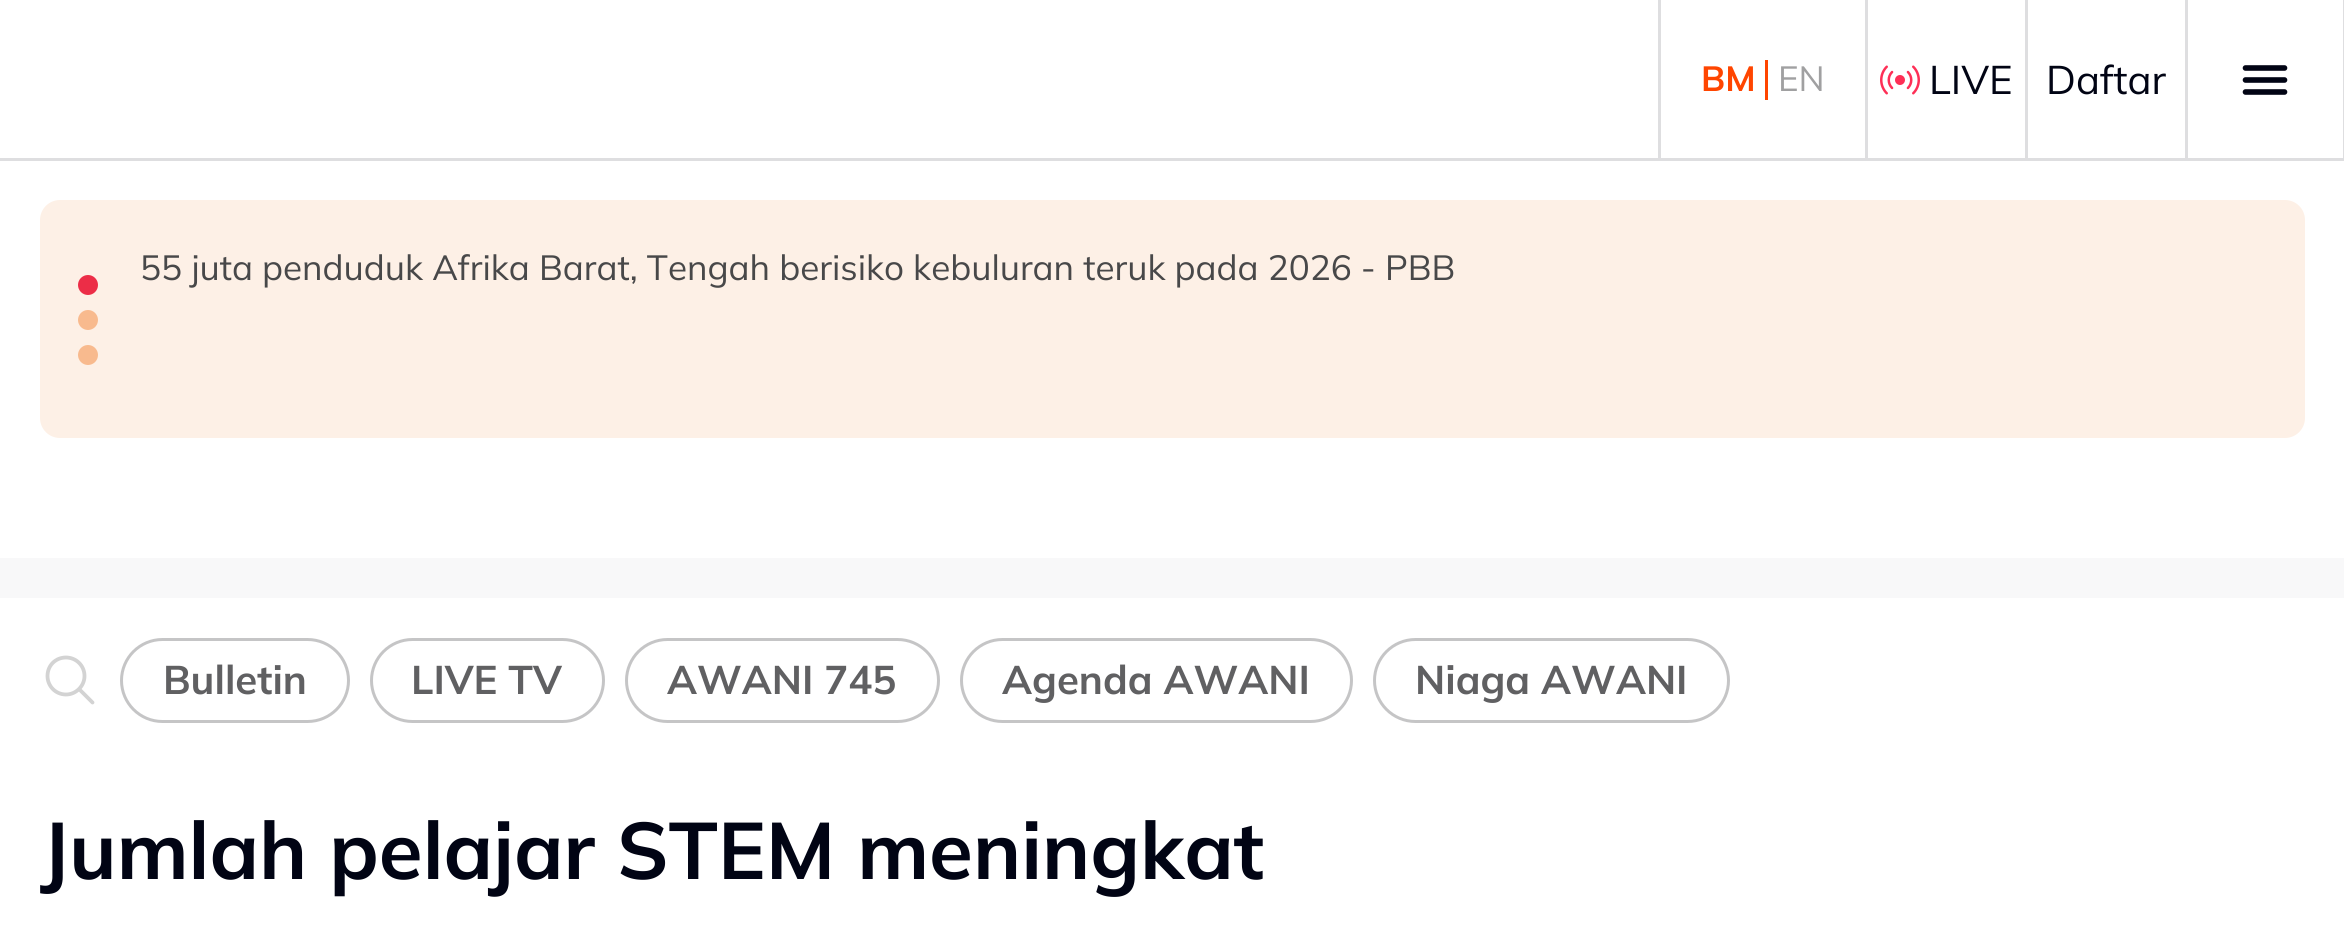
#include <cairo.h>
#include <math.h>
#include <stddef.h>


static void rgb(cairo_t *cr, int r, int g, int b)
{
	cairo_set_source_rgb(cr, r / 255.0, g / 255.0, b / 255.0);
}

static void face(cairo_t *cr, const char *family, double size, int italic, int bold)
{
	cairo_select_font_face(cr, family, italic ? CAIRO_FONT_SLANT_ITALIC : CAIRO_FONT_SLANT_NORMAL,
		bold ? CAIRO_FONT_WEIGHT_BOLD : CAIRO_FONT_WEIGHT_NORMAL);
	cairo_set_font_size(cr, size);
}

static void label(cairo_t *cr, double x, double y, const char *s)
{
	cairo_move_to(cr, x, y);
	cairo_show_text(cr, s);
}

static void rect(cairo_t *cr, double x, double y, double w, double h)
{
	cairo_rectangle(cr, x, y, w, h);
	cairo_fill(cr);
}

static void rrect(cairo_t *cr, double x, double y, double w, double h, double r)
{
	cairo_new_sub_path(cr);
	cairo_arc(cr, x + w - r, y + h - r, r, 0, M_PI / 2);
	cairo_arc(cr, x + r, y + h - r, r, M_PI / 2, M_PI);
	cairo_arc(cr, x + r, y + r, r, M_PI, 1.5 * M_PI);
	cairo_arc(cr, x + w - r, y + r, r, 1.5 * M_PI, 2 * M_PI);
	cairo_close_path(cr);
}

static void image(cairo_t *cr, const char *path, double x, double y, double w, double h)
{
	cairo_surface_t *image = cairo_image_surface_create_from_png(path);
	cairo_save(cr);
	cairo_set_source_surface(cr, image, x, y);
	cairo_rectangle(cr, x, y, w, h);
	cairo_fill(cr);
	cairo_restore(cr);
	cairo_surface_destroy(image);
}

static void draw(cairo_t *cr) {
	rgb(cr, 255, 255, 255);
	cairo_paint(cr);
	rgb(cr, 222, 222, 224);
	rect(cr, 0, 158, 2344, 3);
	rect(cr, 1658, 0, 3, 158);
	face(cr, "Mulish", 35, 0, 1);
	rgb(cr, 255, 69, 0);
	label(cr, 1701, 91, "BM");
	rect(cr, 1765, 60, 3, 40);
	face(cr, "Mulish", 35, 0, 0);
	rgb(cr, 160, 160, 161);
	label(cr, 1778, 91, "EN");
	rgb(cr, 222, 222, 224);
	rect(cr, 1865, 0, 3, 158);
	image(cr, "image0.png", 1880, 65, 40, 30);
	face(cr, "Mulish", 40, 0, 0);
	rgb(cr, 1, 4, 20);
	label(cr, 1929, 94, "LIVE");
	rgb(cr, 222, 222, 224);
	rect(cr, 2025, 0, 3, 158);
	rgb(cr, 1, 4, 20);
	label(cr, 2046, 94, "Daftar");
	rgb(cr, 222, 222, 224);
	rect(cr, 2343, 0, 1, 158);
	rect(cr, 2185, 0, 3, 158);
	cairo_new_path(cr);
	cairo_move_to(cr, 2245.5, 68);
	cairo_line_to(cr, 2284.5, 68);
	cairo_move_to(cr, 2245.5, 80);
	cairo_line_to(cr, 2284.5, 80);
	cairo_move_to(cr, 2245.5, 92);
	cairo_line_to(cr, 2284.5, 92);
	rgb(cr, 1, 4, 20);
	cairo_set_line_width(cr, 5.6);
	cairo_set_line_cap(cr, CAIRO_LINE_CAP_ROUND);
	cairo_stroke(cr);
	rgb(cr, 253, 240, 230);
	rrect(cr, 40, 200, 2265, 238, 20);
	cairo_fill(cr);
	face(cr, "Mulish", 35, 0, 0);
	rgb(cr, 72, 72, 73);
	label(cr, 140, 280, "55 juta penduduk Afrika Barat, Tengah berisiko kebuluran teruk pada 2026 - PBB");
	rgb(cr, 236, 45, 71);
	cairo_new_path(cr);
	cairo_arc(cr, 88, 285, 10, 0, 2 * M_PI);
	cairo_fill(cr);
	rgb(cr, 248, 186, 142);
	cairo_arc(cr, 88, 320, 10, 0, 2 * M_PI);
	cairo_fill(cr);
	cairo_arc(cr, 88, 355, 10, 0, 2 * M_PI);
	cairo_fill(cr);
	rgb(cr, 248, 248, 249);
	rect(cr, 0, 558, 2344, 40);
	cairo_new_path(cr);
	cairo_move_to(cr, 66, 657.5);
	cairo_curve_to(cr, 55.5, 657.5, 47.5, 665.5, 47.5, 676);
	cairo_curve_to(cr, 47.5, 686, 55.5, 694.5, 66, 694.5);
	cairo_curve_to(cr, 76, 694.5, 84.5, 686, 84.5, 676);
	cairo_curve_to(cr, 84.5, 665.5, 76, 657.5, 66, 657.5);
	cairo_close_path(cr);
	rgb(cr, 211, 211, 211);
	cairo_set_line_width(cr, 3.8);
	cairo_set_line_cap(cr, CAIRO_LINE_CAP_BUTT);
	cairo_stroke(cr);
	cairo_new_path(cr);
	cairo_move_to(cr, 79.5, 689.5);
	cairo_line_to(cr, 92.5, 702.5);
	cairo_set_line_cap(cr, CAIRO_LINE_CAP_ROUND);
	cairo_stroke(cr);
	rrect(cr, 121.5, 639.5, 227, 82, 41);
	rgb(cr, 197, 197, 198);
	cairo_set_line_width(cr, 3);
	cairo_set_line_cap(cr, CAIRO_LINE_CAP_BUTT);
	cairo_stroke(cr);
	face(cr, "Mulish", 40, 0, 1);
	rgb(cr, 96, 96, 98);
	label(cr, 163, 694, "Bulletin");
	rrect(cr, 371.5, 639.5, 232, 82, 41);
	rgb(cr, 197, 197, 198);
	cairo_stroke(cr);
	rgb(cr, 96, 96, 98);
	label(cr, 411, 694, "LIVE TV");
	rrect(cr, 626.5, 639.5, 312, 82, 41);
	rgb(cr, 197, 197, 198);
	cairo_stroke(cr);
	rgb(cr, 96, 96, 98);
	label(cr, 667, 694, "AWANI 745");
	rrect(cr, 961.5, 639.5, 390, 82, 41);
	rgb(cr, 197, 197, 198);
	cairo_stroke(cr);
	rgb(cr, 96, 96, 98);
	label(cr, 1002, 694, "Agenda AWANI");
	rrect(cr, 1374.5, 639.5, 354, 82, 41);
	rgb(cr, 197, 197, 198);
	cairo_stroke(cr);
	rgb(cr, 96, 96, 98);
	label(cr, 1415, 694, "Niaga AWANI");
	face(cr, "Mulish", 80, 0, 1);
	rgb(cr, 1, 4, 20);
	label(cr, 40, 879, "Jumlah pelajar STEM meningkat");
}

int main(void) {
	cairo_surface_t *surface = cairo_image_surface_create(CAIRO_FORMAT_RGB24, 2344, 930);
	cairo_t *cr = cairo_create(surface);
	cairo_font_options_t *options = cairo_font_options_create();
	cairo_font_options_set_hint_metrics(options, CAIRO_HINT_METRICS_OFF);
	cairo_font_options_set_hint_style(options, CAIRO_HINT_STYLE_NONE);
	cairo_set_font_options(cr, options);
	cairo_set_miter_limit(cr, 4);
	draw(cr);
	cairo_surface_write_to_png(surface, "render.png");
	cairo_font_options_destroy(options);
	cairo_destroy(cr);
	cairo_surface_destroy(surface);
	return 0;
}
